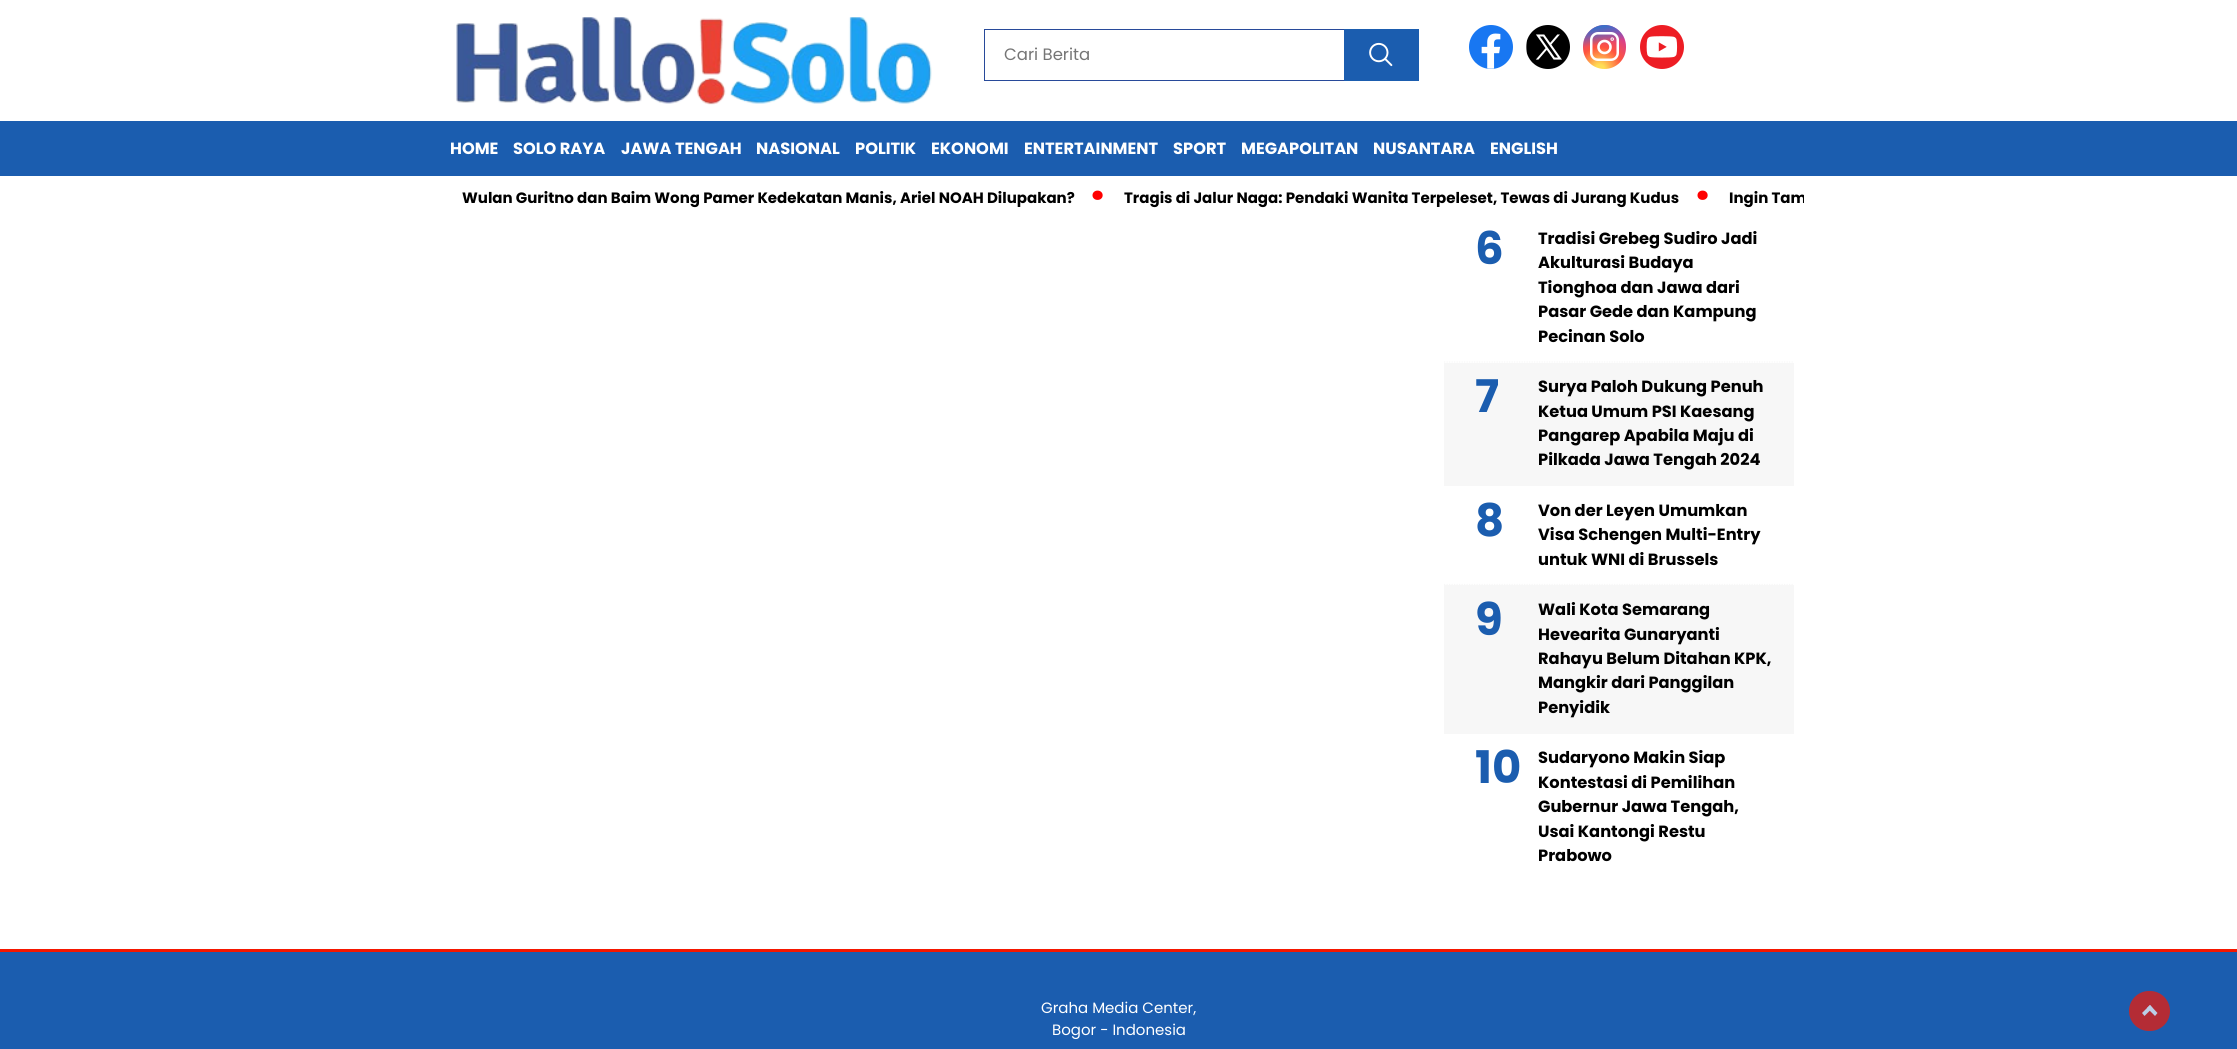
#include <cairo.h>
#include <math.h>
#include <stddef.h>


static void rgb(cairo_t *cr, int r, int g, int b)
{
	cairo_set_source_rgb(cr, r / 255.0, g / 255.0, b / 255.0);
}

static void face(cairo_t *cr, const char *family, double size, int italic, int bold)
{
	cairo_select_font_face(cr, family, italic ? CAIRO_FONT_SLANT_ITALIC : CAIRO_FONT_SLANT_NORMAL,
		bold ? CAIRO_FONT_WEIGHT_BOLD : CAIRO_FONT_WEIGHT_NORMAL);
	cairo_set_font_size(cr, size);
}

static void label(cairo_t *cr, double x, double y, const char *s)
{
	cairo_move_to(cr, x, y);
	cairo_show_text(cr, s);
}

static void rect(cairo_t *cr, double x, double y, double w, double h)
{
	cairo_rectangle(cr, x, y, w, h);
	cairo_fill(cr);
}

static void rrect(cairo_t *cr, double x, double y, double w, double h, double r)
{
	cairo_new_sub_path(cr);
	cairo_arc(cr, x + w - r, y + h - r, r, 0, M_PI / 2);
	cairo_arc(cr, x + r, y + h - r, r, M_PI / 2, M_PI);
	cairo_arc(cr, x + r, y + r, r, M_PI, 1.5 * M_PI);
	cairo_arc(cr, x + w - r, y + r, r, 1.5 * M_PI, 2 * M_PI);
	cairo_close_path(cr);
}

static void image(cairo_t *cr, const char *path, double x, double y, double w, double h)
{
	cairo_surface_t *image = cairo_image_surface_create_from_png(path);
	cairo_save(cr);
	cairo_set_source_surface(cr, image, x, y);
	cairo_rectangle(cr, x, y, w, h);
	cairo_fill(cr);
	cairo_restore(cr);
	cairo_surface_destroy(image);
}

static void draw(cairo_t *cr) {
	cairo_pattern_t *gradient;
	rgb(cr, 255, 255, 255);
	cairo_paint(cr);
	image(cr, "image0.png", 456, 17, 476, 88);
	cairo_rectangle(cr, 984.5, 29.5, 360, 51);
	rgb(cr, 40, 74, 154);
	cairo_set_line_width(cr, 1);
	cairo_stroke(cr);
	face(cr, "Poppins", 16.5, 0, 0);
	rgb(cr, 117, 117, 117);
	label(cr, 1004, 60, "Cari Berita");
	rgb(cr, 27, 93, 175);
	rect(cr, 1344, 29, 75, 52);
	image(cr, "image1.png", 1369, 42, 24, 25);
	image(cr, "image2.png", 1469, 25, 44, 44);
	image(cr, "image3.png", 1526, 25, 44, 44);
	gradient = cairo_pattern_create_radial(1600, 69, 0, 1600, 69, 44);
	cairo_pattern_add_color_stop_rgba(gradient, 0.1, 1, 0.867, 0.333, 1);
	cairo_pattern_add_color_stop_rgba(gradient, 0.5, 1, 0.329, 0.243, 1);
	cairo_pattern_add_color_stop_rgba(gradient, 1, 0.784, 0.216, 0.671, 1);
	cairo_set_source(cr, gradient);
	cairo_pattern_destroy(gradient);
	rrect(cr, 1583, 25, 43, 44, 21.5);
	cairo_fill(cr);
	gradient = cairo_pattern_create_linear(1583, 25, 1591, 69);
	cairo_pattern_add_color_stop_rgba(gradient, 0.1, 0.216, 0.443, 0.784, 1);
	cairo_pattern_add_color_stop_rgba(gradient, 0.5, 0.216, 0.443, 0.784, 0);
	cairo_set_source(cr, gradient);
	cairo_pattern_destroy(gradient);
	rrect(cr, 1583, 25, 43, 44, 21.5);
	cairo_fill(cr);
	rrect(cr, 1591.25, 33.25, 26.5, 26.5, 6.75);
	rgb(cr, 255, 255, 255);
	cairo_set_line_width(cr, 2.5);
	cairo_stroke(cr);
	cairo_arc(cr, 1604.5, 47, 6, 0, 2 * M_PI);
	cairo_set_line_width(cr, 2.6);
	cairo_stroke(cr);
	cairo_arc(cr, 1612.2, 39.1, 0.5, 0, 2 * M_PI);
	cairo_stroke(cr);
	image(cr, "image4.png", 1640, 25, 44, 44);
	rgb(cr, 27, 93, 175);
	rect(cr, 0, 121, 2237, 55);
	face(cr, "Poppins", 16.25, 0, 1);
	rgb(cr, 255, 255, 255);
	label(cr, 450, 154, "HOME");
	label(cr, 513, 154, "SOLO RAYA");
	label(cr, 621, 154, "JAWA TENGAH");
	label(cr, 756, 154, "NASIONAL");
	label(cr, 855, 154, "POLITIK");
	label(cr, 931, 154, "EKONOMI");
	label(cr, 1024, 154, "ENTERTAINMENT");
	label(cr, 1173, 154, "SPORT");
	label(cr, 1241, 154, "MEGAPOLITAN");
	label(cr, 1373, 154, "NUSANTARA");
	label(cr, 1490, 154, "ENGLISH");
	face(cr, "Poppins", 15, 0, 1);
	rgb(cr, 0, 0, 0);
	label(cr, 462, 203, "Wulan Guritno dan Baim Wong Pamer Kedekatan Manis, Ariel NOAH Dilupakan?");
	face(cr, "Poppins", 50, 0, 1);
	rgb(cr, 255, 0, 0);
	label(cr, 1090, 211, "·");
	face(cr, "Poppins", 15, 0, 1);
	rgb(cr, 0, 0, 0);
	label(cr, 1124, 203, "Tragis di Jalur Naga: Pendaki Wanita Terpeleset, Tewas di Jurang Kudus");
	face(cr, "Poppins", 50, 0, 1);
	rgb(cr, 255, 0, 0);
	label(cr, 1695, 211, "·");
	cairo_save(cr);
	cairo_rectangle(cr, 435, 176, 1369, 38);
	cairo_clip(cr);
	face(cr, "Poppins", 15, 0, 1);
	rgb(cr, 0, 0, 0);
	label(cr, 1729, 203, "Ingin Tam");
	cairo_restore(cr);
	cairo_new_path(cr);
	cairo_move_to(cr, 1444, 362);
	cairo_line_to(cr, 1794, 362);
	rgb(cr, 247, 247, 247);
	cairo_set_line_width(cr, 1.2);
	cairo_set_dash(cr, (double[]){1.25, 1.25}, 2, 0);
	cairo_stroke(cr);
	face(cr, "Poppins", 45, 0, 1);
	rgb(cr, 27, 93, 175);
	label(cr, 1475, 264, "6");
	face(cr, "Poppins", 16.25, 0, 1);
	rgb(cr, 0, 0, 0);
	label(cr, 1538, 244, "Tradisi Grebeg Sudiro Jadi");
	label(cr, 1538, 268, "Akulturasi Budaya");
	label(cr, 1538, 293, "Tionghoa dan Jawa dari");
	label(cr, 1538, 317, "Pasar Gede dan Kampung");
	label(cr, 1538, 342, "Pecinan Solo");
	rgb(cr, 247, 247, 247);
	rect(cr, 1444, 363, 350, 123);
	face(cr, "Poppins", 45, 0, 1);
	rgb(cr, 27, 93, 175);
	label(cr, 1475, 412, "7");
	face(cr, "Poppins", 16.25, 0, 1);
	rgb(cr, 0, 0, 0);
	label(cr, 1538, 392, "Surya Paloh Dukung Penuh");
	label(cr, 1538, 417, "Ketua Umum PSI Kaesang");
	label(cr, 1538, 441, "Pangarep Apabila Maju di");
	label(cr, 1538, 465, "Pilkada Jawa Tengah 2024");
	cairo_new_path(cr);
	cairo_move_to(cr, 1444, 584.5);
	cairo_line_to(cr, 1794, 584.5);
	rgb(cr, 247, 247, 247);
	cairo_stroke(cr);
	face(cr, "Poppins", 45, 0, 1);
	rgb(cr, 27, 93, 175);
	label(cr, 1475, 536, "8");
	face(cr, "Poppins", 16.25, 0, 1);
	rgb(cr, 0, 0, 0);
	label(cr, 1538, 516, "Von der Leyen Umumkan");
	label(cr, 1538, 540, "Visa Schengen Multi-Entry");
	label(cr, 1538, 565, "untuk WNI di Brussels");
	rgb(cr, 247, 247, 247);
	rect(cr, 1444, 585, 350, 149);
	face(cr, "Poppins", 45, 0, 1);
	rgb(cr, 27, 93, 175);
	label(cr, 1475, 635, "9");
	face(cr, "Poppins", 16.25, 0, 1);
	rgb(cr, 0, 0, 0);
	label(cr, 1538, 615, "Wali Kota Semarang");
	label(cr, 1538, 640, "Hevearita Gunaryanti");
	label(cr, 1538, 664, "Rahayu Belum Ditahan KPK,");
	label(cr, 1538, 688, "Mangkir dari Panggilan");
	label(cr, 1538, 713, "Penyidik");
	face(cr, "Poppins", 45, 0, 1);
	rgb(cr, 27, 93, 175);
	label(cr, 1475, 783, "10");
	face(cr, "Poppins", 16.25, 0, 1);
	rgb(cr, 0, 0, 0);
	label(cr, 1538, 763, "Sudaryono Makin Siap");
	label(cr, 1538, 788, "Kontestasi di Pemilihan");
	label(cr, 1538, 812, "Gubernur Jawa Tengah,");
	label(cr, 1538, 837, "Usai Kantongi Restu");
	label(cr, 1538, 861, "Prabowo");
	rgb(cr, 27, 93, 175);
	rect(cr, 0, 952, 2237, 97);
	rgb(cr, 245, 23, 0);
	rect(cr, 0, 949, 2237, 3);
	face(cr, "Poppins", 15, 0, 0);
	rgb(cr, 255, 255, 255);
	label(cr, 1041, 1013, "Graha Media Center,");
	label(cr, 1052, 1035, "Bogor - Indonesia");
	rgb(cr, 180, 44, 53);
	rrect(cr, 2129, 991, 41, 40, 20);
	cairo_fill(cr);
	rgb(cr, 187, 206, 231);
	cairo_new_path(cr);
	cairo_move_to(cr, 2144.5, 1016);
	cairo_line_to(cr, 2142, 1013);
	cairo_line_to(cr, 2150, 1005);
	cairo_line_to(cr, 2152.5, 1008);
	cairo_close_path(cr);
	cairo_fill(cr);
	cairo_new_path(cr);
	cairo_move_to(cr, 2155, 1016);
	cairo_line_to(cr, 2147, 1008);
	cairo_line_to(cr, 2150, 1005);
	cairo_line_to(cr, 2157.5, 1013);
	cairo_close_path(cr);
	cairo_fill(cr);
}

int main(void) {
	cairo_surface_t *surface = cairo_image_surface_create(CAIRO_FORMAT_RGB24, 2237, 1049);
	cairo_t *cr = cairo_create(surface);
	cairo_font_options_t *options = cairo_font_options_create();
	cairo_font_options_set_hint_metrics(options, CAIRO_HINT_METRICS_OFF);
	cairo_font_options_set_hint_style(options, CAIRO_HINT_STYLE_NONE);
	cairo_set_font_options(cr, options);
	cairo_set_miter_limit(cr, 4);
	draw(cr);
	cairo_surface_write_to_png(surface, "render.png");
	cairo_font_options_destroy(options);
	cairo_destroy(cr);
	cairo_surface_destroy(surface);
	return 0;
}
